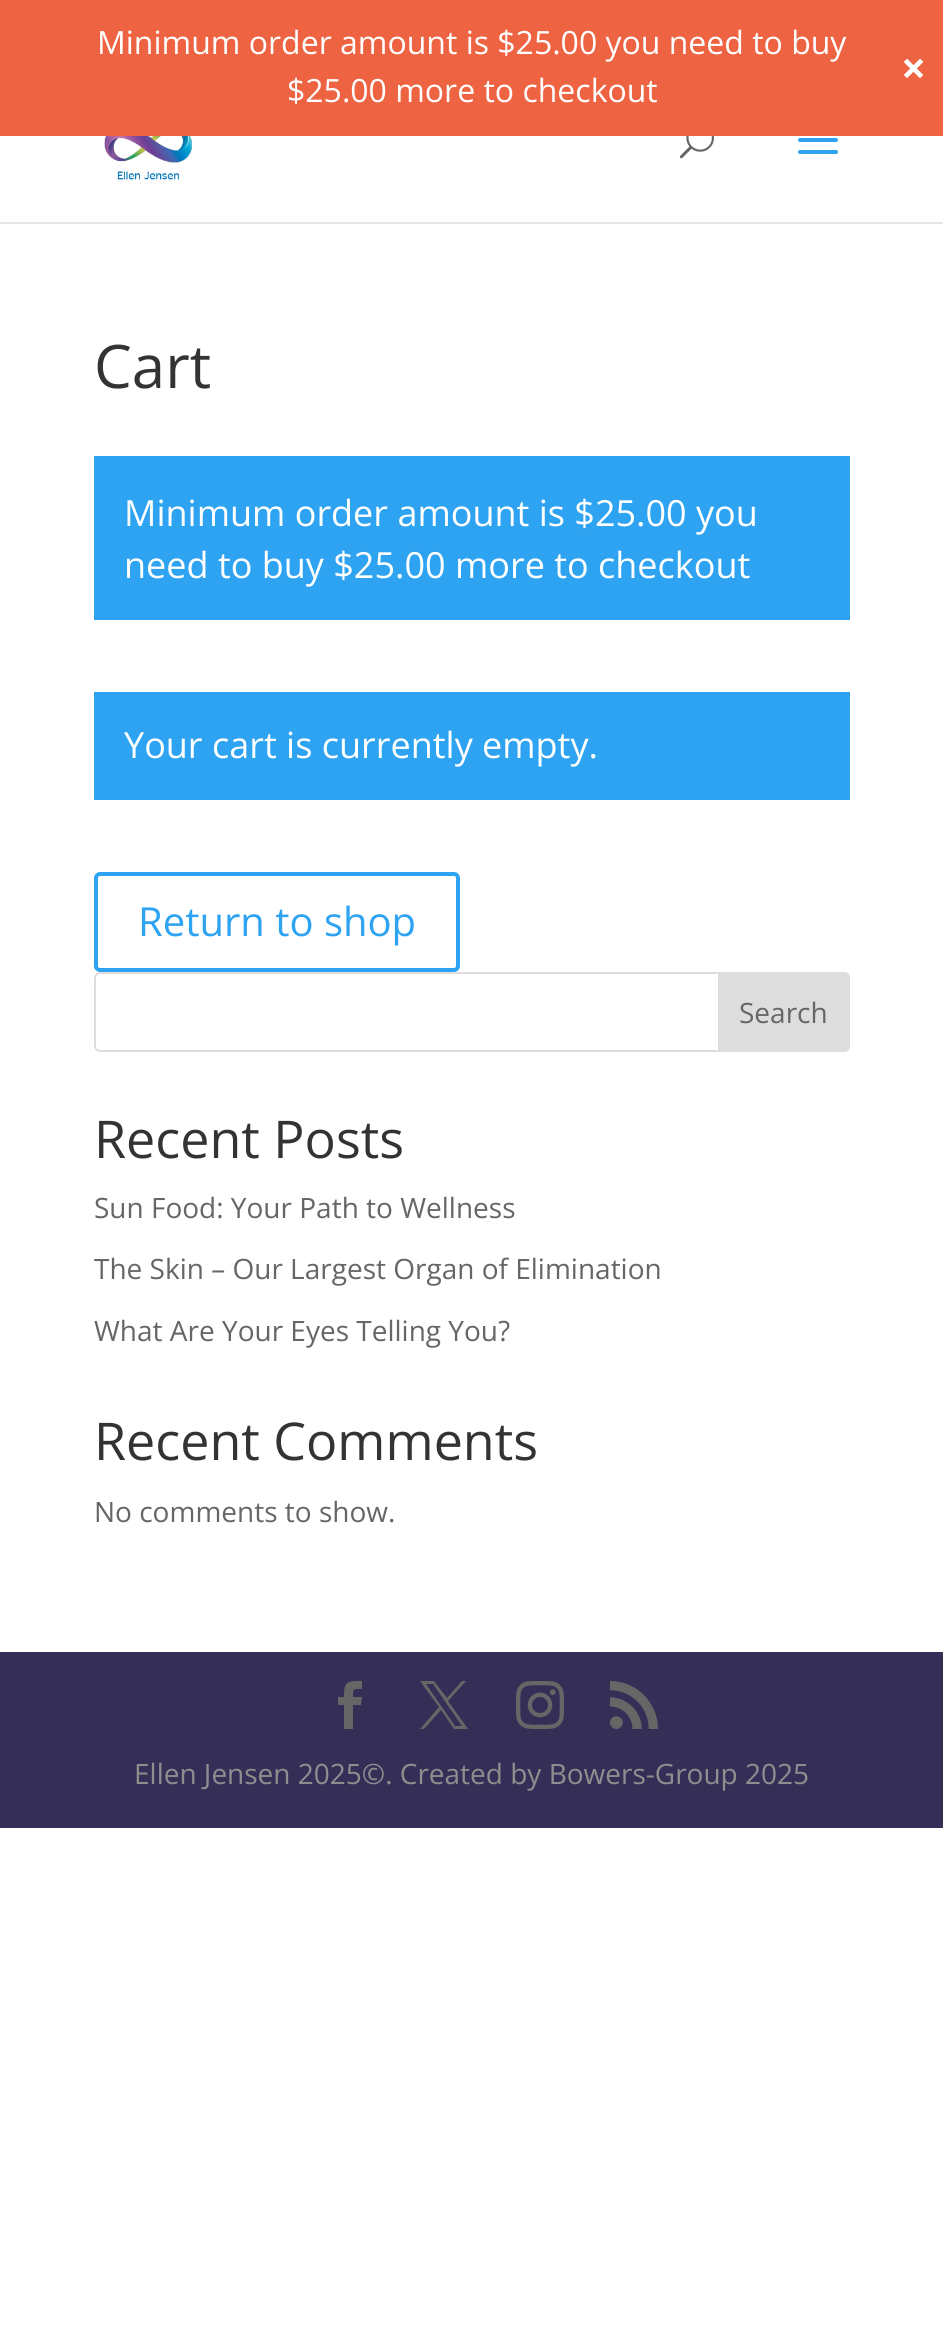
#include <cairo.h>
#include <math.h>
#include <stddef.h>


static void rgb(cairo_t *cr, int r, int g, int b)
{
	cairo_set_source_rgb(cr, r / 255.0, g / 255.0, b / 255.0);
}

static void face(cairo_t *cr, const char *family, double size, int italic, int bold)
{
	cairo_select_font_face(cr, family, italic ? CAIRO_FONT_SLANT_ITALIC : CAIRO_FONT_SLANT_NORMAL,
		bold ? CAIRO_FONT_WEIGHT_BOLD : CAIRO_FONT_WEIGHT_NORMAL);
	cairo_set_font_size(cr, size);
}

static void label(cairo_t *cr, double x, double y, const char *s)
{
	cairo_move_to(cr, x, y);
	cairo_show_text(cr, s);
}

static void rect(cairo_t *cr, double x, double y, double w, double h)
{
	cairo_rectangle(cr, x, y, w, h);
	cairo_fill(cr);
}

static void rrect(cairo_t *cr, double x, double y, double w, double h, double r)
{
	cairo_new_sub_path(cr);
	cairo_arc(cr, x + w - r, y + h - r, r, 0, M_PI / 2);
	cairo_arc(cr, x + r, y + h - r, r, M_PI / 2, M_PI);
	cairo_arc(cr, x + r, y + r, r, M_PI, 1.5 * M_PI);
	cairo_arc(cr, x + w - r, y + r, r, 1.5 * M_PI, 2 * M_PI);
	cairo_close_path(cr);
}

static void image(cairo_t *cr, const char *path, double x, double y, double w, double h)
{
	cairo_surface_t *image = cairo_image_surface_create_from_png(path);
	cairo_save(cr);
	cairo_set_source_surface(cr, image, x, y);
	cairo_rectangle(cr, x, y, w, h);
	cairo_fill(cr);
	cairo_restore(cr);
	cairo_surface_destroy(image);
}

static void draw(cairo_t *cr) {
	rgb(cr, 255, 255, 255);
	cairo_paint(cr);
	rgb(cr, 238, 100, 67);
	rect(cr, 0, 0, 943, 136);
	face(cr, "Open Sans", 32, 0, 0);
	rgb(cr, 255, 255, 255);
	label(cr, 97, 54, "Minimum order amount is $25.00 you need to buy");
	label(cr, 287, 102, "$25.00 more to checkout");
	face(cr, "Open Sans", 44, 0, 1);
	label(cr, 901, 84, "×");
	rgb(cr, 230, 230, 230);
	rect(cr, 0, 222, 943, 2);
	image(cr, "image0.png", 104, 136, 89, 44);
	image(cr, "image1.png", 679, 136, 35, 23);
	image(cr, "image2.png", 798, 138, 40, 16);
	face(cr, "Open Sans", 60, 0, 0);
	rgb(cr, 51, 51, 51);
	label(cr, 94, 388, "Cart");
	rgb(cr, 46, 163, 242);
	rect(cr, 94, 456, 756, 164);
	face(cr, "Open Sans", 36, 0, 0);
	rgb(cr, 255, 255, 255);
	label(cr, 124, 526, "Minimum order amount is $25.00 you");
	label(cr, 124, 578, "need to buy $25.00 more to checkout");
	rgb(cr, 46, 163, 242);
	rect(cr, 94, 692, 756, 108);
	rgb(cr, 255, 255, 255);
	label(cr, 124, 758, "Your cart is currently empty.");
	rrect(cr, 96, 874, 362, 96, 4);
	rgb(cr, 46, 163, 242);
	cairo_set_line_width(cr, 4);
	cairo_stroke(cr);
	face(cr, "Open Sans", 40, 0, 0);
	label(cr, 138, 936, "Return to shop");
	rrect(cr, 95, 973, 754, 78, 5);
	rgb(cr, 221, 221, 221);
	cairo_set_line_width(cr, 2);
	cairo_stroke(cr);
	cairo_new_path(cr);
	cairo_move_to(cr, 719, 973);
	cairo_line_to(cr, 844, 973);
	cairo_curve_to(cr, 847, 973, 849, 975, 849, 978);
	cairo_line_to(cr, 849, 1046);
	cairo_curve_to(cr, 849, 1049, 847, 1051, 844, 1051);
	cairo_line_to(cr, 719, 1051);
	cairo_close_path(cr);
	cairo_fill_preserve(cr);
	cairo_stroke(cr);
	face(cr, "Open Sans", 28, 0, 0);
	rgb(cr, 102, 102, 102);
	label(cr, 739, 1023, "Search");
	face(cr, "Open Sans", 52, 0, 0);
	rgb(cr, 51, 51, 51);
	label(cr, 94, 1158, "Recent Posts");
	face(cr, "Open Sans", 28, 0, 0);
	rgb(cr, 102, 102, 102);
	label(cr, 94, 1218, "Sun Food: Your Path to Wellness");
	label(cr, 94, 1279, "The Skin – Our Largest Organ of Elimination");
	label(cr, 94, 1341, "What Are Your Eyes Telling You?");
	face(cr, "Open Sans", 52, 0, 0);
	rgb(cr, 51, 51, 51);
	label(cr, 94, 1460, "Recent Comments");
	face(cr, "Open Sans", 28, 0, 0);
	rgb(cr, 102, 102, 102);
	label(cr, 94, 1522, "No comments to show.");
	rgb(cr, 53, 46, 87);
	rect(cr, 0, 1652, 943, 176);
	rgb(cr, 102, 102, 102);
	cairo_new_path(cr);
	cairo_move_to(cr, 344, 1729);
	cairo_line_to(cr, 353, 1729);
	cairo_line_to(cr, 353, 1705);
	cairo_line_to(cr, 361, 1705);
	cairo_line_to(cr, 362, 1697);
	cairo_line_to(cr, 353, 1697);
	cairo_curve_to(cr, 353, 1688, 353, 1689, 362, 1689);
	cairo_line_to(cr, 362, 1681);
	cairo_curve_to(cr, 347, 1681, 344, 1681, 344, 1697);
	cairo_line_to(cr, 338, 1697);
	cairo_line_to(cr, 338, 1705);
	cairo_line_to(cr, 344, 1705);
	cairo_close_path(cr);
	cairo_fill(cr);
	cairo_new_path(cr);
	cairo_move_to(cr, 420, 1681);
	cairo_line_to(cr, 439, 1707);
	cairo_line_to(cr, 420, 1729);
	cairo_line_to(cr, 424, 1729);
	cairo_line_to(cr, 441, 1710);
	cairo_line_to(cr, 454, 1729);
	cairo_line_to(cr, 468, 1729);
	cairo_line_to(cr, 448, 1701);
	cairo_line_to(cr, 466, 1681);
	cairo_line_to(cr, 462, 1681);
	cairo_line_to(cr, 447, 1698);
	cairo_line_to(cr, 434, 1681);
	cairo_close_path(cr);
	cairo_move_to(cr, 426, 1684);
	cairo_line_to(cr, 433, 1684);
	cairo_line_to(cr, 462, 1726);
	cairo_line_to(cr, 455, 1726);
	cairo_close_path(cr);
	cairo_fill(cr);
	image(cr, "image3.png", 516, 1681, 48, 48);
	image(cr, "image4.png", 610, 1681, 48, 48);
	rgb(cr, 142, 142, 142);
	label(cr, 134, 1784, "Ellen Jensen 2025©. Created by Bowers-Group 2025");
}

int main(void) {
	cairo_surface_t *surface = cairo_image_surface_create(CAIRO_FORMAT_RGB24, 943, 2348);
	cairo_t *cr = cairo_create(surface);
	cairo_font_options_t *options = cairo_font_options_create();
	cairo_font_options_set_hint_metrics(options, CAIRO_HINT_METRICS_OFF);
	cairo_font_options_set_hint_style(options, CAIRO_HINT_STYLE_NONE);
	cairo_set_font_options(cr, options);
	cairo_set_miter_limit(cr, 4);
	draw(cr);
	cairo_surface_write_to_png(surface, "render.png");
	cairo_font_options_destroy(options);
	cairo_destroy(cr);
	cairo_surface_destroy(surface);
	return 0;
}
